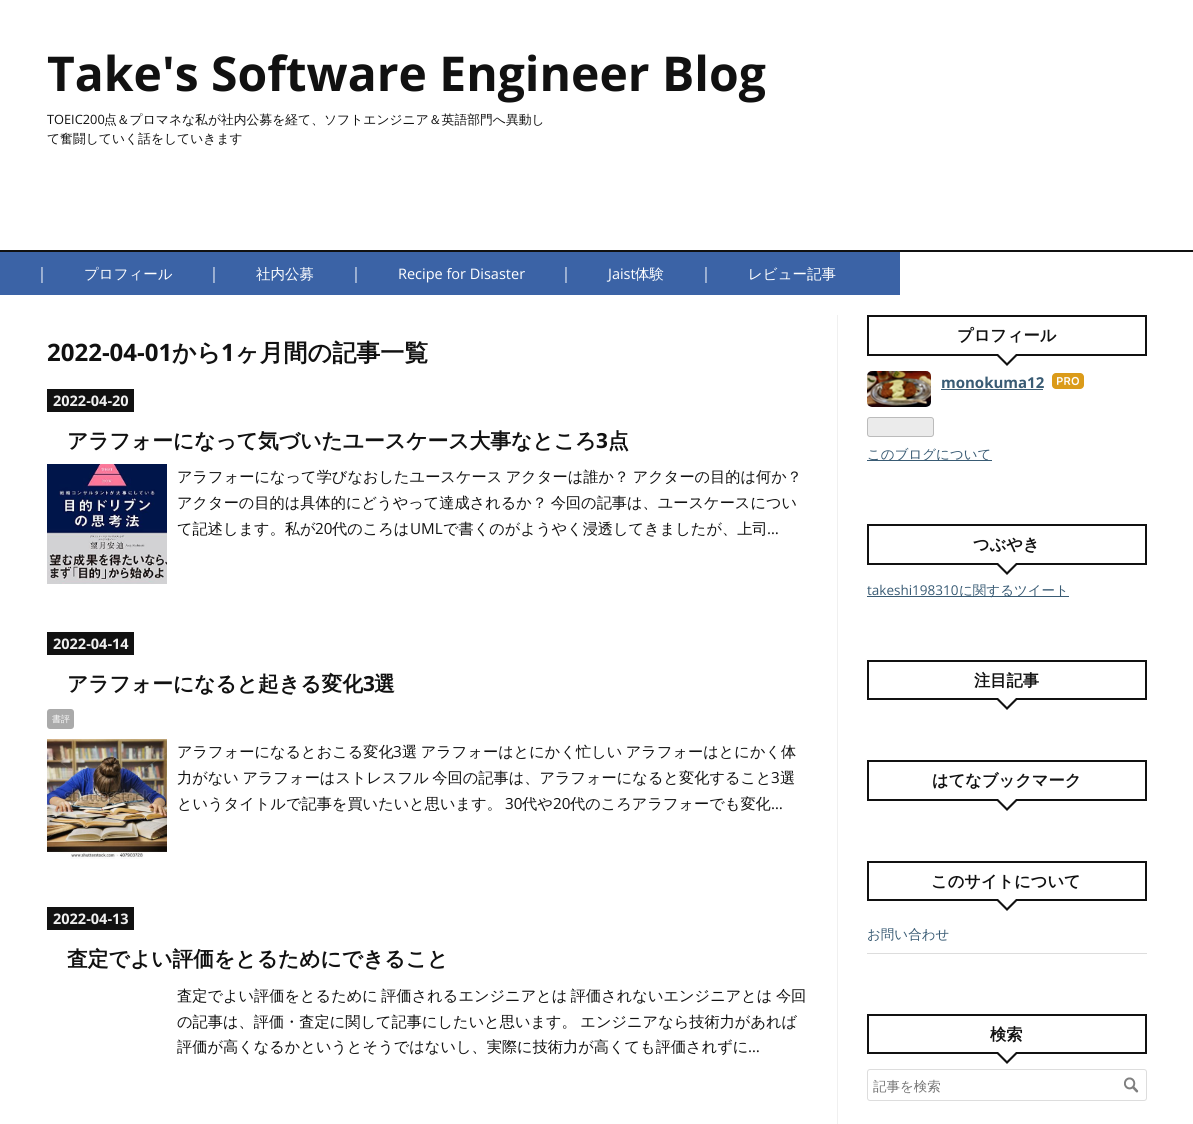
#include <cairo.h>
#include <math.h>
#include <stddef.h>


static void rgb(cairo_t *cr, int r, int g, int b)
{
	cairo_set_source_rgb(cr, r / 255.0, g / 255.0, b / 255.0);
}

static void face(cairo_t *cr, const char *family, double size, int italic, int bold)
{
	cairo_select_font_face(cr, family, italic ? CAIRO_FONT_SLANT_ITALIC : CAIRO_FONT_SLANT_NORMAL,
		bold ? CAIRO_FONT_WEIGHT_BOLD : CAIRO_FONT_WEIGHT_NORMAL);
	cairo_set_font_size(cr, size);
}

static void label(cairo_t *cr, double x, double y, const char *s)
{
	cairo_move_to(cr, x, y);
	cairo_show_text(cr, s);
}

static void tracked(cairo_t *cr, double x, double y, const char *s, double letter, double word)
{
	cairo_move_to(cr, x, y);
	while (*s) {
		char ch[5] = {0};
		int n = 0;
		do ch[n++] = *s++; while ((*s & 0xC0) == 0x80);
		cairo_show_text(cr, ch);
		cairo_rel_move_to(cr, letter + word * (*ch == ' '), 0);
	}
}

static void rect(cairo_t *cr, double x, double y, double w, double h)
{
	cairo_rectangle(cr, x, y, w, h);
	cairo_fill(cr);
}

static void rrect(cairo_t *cr, double x, double y, double w, double h, double r)
{
	cairo_new_sub_path(cr);
	cairo_arc(cr, x + w - r, y + h - r, r, 0, M_PI / 2);
	cairo_arc(cr, x + r, y + h - r, r, M_PI / 2, M_PI);
	cairo_arc(cr, x + r, y + r, r, M_PI, 1.5 * M_PI);
	cairo_arc(cr, x + w - r, y + r, r, 1.5 * M_PI, 2 * M_PI);
	cairo_close_path(cr);
}

static void image(cairo_t *cr, const char *path, double x, double y, double w, double h)
{
	cairo_surface_t *image = cairo_image_surface_create_from_png(path);
	cairo_save(cr);
	cairo_set_source_surface(cr, image, x, y);
	cairo_rectangle(cr, x, y, w, h);
	cairo_fill(cr);
	cairo_restore(cr);
	cairo_surface_destroy(image);
}

static void draw(cairo_t *cr) {
	rgb(cr, 255, 255, 255);
	cairo_paint(cr);
	rgb(cr, 17, 17, 17);
	rect(cr, 0, 250, 1193, 2);
	face(cr, "Open Sans", 48, 0, 1);
	label(cr, 47, 91, "Take's Software Engineer Blog");
	face(cr, "Open Sans", 12.8, 0, 0);
	label(cr, 47, 124, "TOEIC200");
	face(cr, "WenQuanYi Zen Hei Medium", 12.8, 0, 0);
	label(cr, 104, 124, "点＆プロマネな私が社内公募を経て、ソフトエンジニア＆英語部門へ異動し");
	label(cr, 47, 143, "て奮闘していく話をしていきます");
	rgb(cr, 59, 99, 166);
	rect(cr, 0, 252, 900, 43);
	face(cr, "WenQuanYi Zen Hei Medium", 16, 0, 0);
	rgb(cr, 255, 255, 255);
	label(cr, 34, 279, "｜");
	face(cr, "WenQuanYi Zen Hei Medium", 14.5, 0, 0);
	label(cr, 84, 279, "プロフィール");
	face(cr, "WenQuanYi Zen Hei Medium", 16, 0, 0);
	label(cr, 206, 279, "｜");
	face(cr, "WenQuanYi Zen Hei Medium", 14.5, 0, 0);
	label(cr, 256, 279, "社内公募");
	face(cr, "WenQuanYi Zen Hei Medium", 16, 0, 0);
	label(cr, 348, 279, "｜");
	face(cr, "Open Sans", 14.5, 0, 0);
	label(cr, 398, 279, "Recipe for Disaster");
	face(cr, "WenQuanYi Zen Hei Medium", 16, 0, 0);
	label(cr, 558, 279, "｜");
	face(cr, "Open Sans", 14.5, 0, 0);
	label(cr, 608, 279, "Jaist");
	face(cr, "WenQuanYi Zen Hei Medium", 14.5, 0, 0);
	label(cr, 635, 279, "体験");
	face(cr, "WenQuanYi Zen Hei Medium", 16, 0, 0);
	label(cr, 698, 279, "｜");
	face(cr, "WenQuanYi Zen Hei Medium", 14.5, 0, 0);
	label(cr, 748, 279, "レビュー記事");
	rgb(cr, 240, 240, 240);
	rect(cr, 837, 315, 1, 809);
	face(cr, "Open Sans", 24, 0, 1);
	rgb(cr, 17, 17, 17);
	label(cr, 47, 361, "2022-04-01");
	face(cr, "WenQuanYi Zen Hei", 24, 0, 1);
	label(cr, 172, 361, "から");
	face(cr, "Open Sans", 24, 0, 1);
	label(cr, 221, 361, "1");
	face(cr, "WenQuanYi Zen Hei", 24, 0, 1);
	label(cr, 235, 361, "ヶ月間の記事一覧");
	rect(cr, 47, 389, 87, 23);
	face(cr, "Open Sans", 14.5, 0, 1);
	rgb(cr, 240, 240, 240);
	label(cr, 53, 406, "2022-04-20");
	face(cr, "WenQuanYi Zen Hei", 20.8, 0, 1);
	rgb(cr, 17, 17, 17);
	label(cr, 67, 448, "アラフォーになって気づいたユースケース大事なところ");
	face(cr, "Open Sans", 20.8, 0, 1);
	label(cr, 596, 448, "3");
	face(cr, "WenQuanYi Zen Hei", 20.8, 0, 1);
	label(cr, 608, 448, "点");
	image(cr, "image0.png", 47, 464, 120, 120);
	face(cr, "WenQuanYi Zen Hei Medium", 15.2, 0, 0);
	tracked(cr, 177, 482, "アラフォーになって学びなおしたユースケース アクターは誰か？ アクターの目的は何か？", 0, -1);
	tracked(cr, 177, 508, "アクターの目的は具体的にどうやって達成されるか？ 今回の記事は、ユースケースについ", 0, -1);
	label(cr, 177, 534, "て記述します。私が");
	face(cr, "Open Sans", 15.2, 0, 0);
	label(cr, 315, 534, "20");
	face(cr, "WenQuanYi Zen Hei Medium", 15.2, 0, 0);
	label(cr, 332, 534, "代のころは");
	face(cr, "Open Sans", 15.2, 0, 0);
	label(cr, 410, 534, "UML");
	face(cr, "WenQuanYi Zen Hei Medium", 15.2, 0, 0);
	label(cr, 443, 534, "で書くのがようやく浸透してきましたが、上司");
	face(cr, "Open Sans", 15.2, 0, 0);
	label(cr, 767, 534, "…");
	rect(cr, 47, 632, 87, 23);
	face(cr, "Open Sans", 14.5, 0, 1);
	rgb(cr, 240, 240, 240);
	label(cr, 53, 649, "2022-04-14");
	face(cr, "WenQuanYi Zen Hei", 20.8, 0, 1);
	rgb(cr, 17, 17, 17);
	label(cr, 67, 691, "アラフォーになると起きる変化");
	face(cr, "Open Sans", 20.8, 0, 1);
	label(cr, 363, 691, "3");
	face(cr, "WenQuanYi Zen Hei", 20.8, 0, 1);
	label(cr, 374, 691, "選");
	rgb(cr, 170, 170, 170);
	rrect(cr, 47, 709, 27, 20, 3);
	cairo_fill(cr);
	face(cr, "WenQuanYi Zen Hei Medium", 9, 0, 0);
	rgb(cr, 255, 255, 255);
	label(cr, 52, 722, "書評");
	image(cr, "image1.png", 47, 739, 120, 120);
	face(cr, "WenQuanYi Zen Hei Medium", 15.2, 0, 0);
	rgb(cr, 17, 17, 17);
	label(cr, 177, 757, "アラフォーになるとおこる変化");
	face(cr, "Open Sans", 15.2, 0, 0);
	label(cr, 393, 757, "3");
	face(cr, "WenQuanYi Zen Hei Medium", 15.2, 0, 0);
	tracked(cr, 402, 757, "選 アラフォーはとにかく忙しい アラフォーはとにかく体", 0, -1);
	tracked(cr, 177, 783, "力がない アラフォーはストレスフル 今回の記事は、アラフォーになると変化すること", 0, -1);
	face(cr, "Open Sans", 15.2, 0, 0);
	label(cr, 771, 783, "3");
	face(cr, "WenQuanYi Zen Hei Medium", 15.2, 0, 0);
	label(cr, 780, 783, "選");
	label(cr, 177, 809, "というタイトルで記事を買いたいと思います。");
	face(cr, "Open Sans", 15.2, 0, 0);
	label(cr, 505, 809, "30");
	face(cr, "WenQuanYi Zen Hei Medium", 15.2, 0, 0);
	label(cr, 522, 809, "代や");
	face(cr, "Open Sans", 15.2, 0, 0);
	label(cr, 553, 809, "20");
	face(cr, "WenQuanYi Zen Hei Medium", 15.2, 0, 0);
	label(cr, 570, 809, "代のころアラフォーでも変化");
	face(cr, "Open Sans", 15.2, 0, 0);
	label(cr, 771, 809, "…");
	rect(cr, 47, 907, 87, 23);
	face(cr, "Open Sans", 14.5, 0, 1);
	rgb(cr, 240, 240, 240);
	label(cr, 53, 924, "2022-04-13");
	face(cr, "WenQuanYi Zen Hei", 20.8, 0, 1);
	rgb(cr, 17, 17, 17);
	label(cr, 67, 966, "査定でよい評価をとるためにできること");
	face(cr, "WenQuanYi Zen Hei Medium", 15.2, 0, 0);
	tracked(cr, 177, 1001, "査定でよい評価をとるために 評価されるエンジニアとは 評価されないエンジニアとは 今回", 0, -1);
	tracked(cr, 177, 1027, "の記事は、評価・査定に関して記事にしたいと思います。 エンジニアなら技術力があれば", 0, -1);
	label(cr, 177, 1052, "評価が高くなるかというとそうではないし、実際に技術力が高くても評価されずに");
	face(cr, "Open Sans", 15.2, 0, 0);
	label(cr, 748, 1052, "…");
	cairo_rectangle(cr, 868, 316, 278, 39);
	cairo_stroke(cr);
	face(cr, "WenQuanYi Zen Hei", 16.25, 0, 1);
	label(cr, 957, 341, "プロフィール");
	cairo_new_path(cr);
	cairo_move_to(cr, 995, 354);
	cairo_line_to(cr, 1019, 354);
	cairo_line_to(cr, 1007, 366);
	cairo_close_path(cr);
	cairo_fill(cr);
	rgb(cr, 255, 255, 255);
	cairo_new_path(cr);
	cairo_move_to(cr, 998, 354);
	cairo_line_to(cr, 1016, 354);
	cairo_line_to(cr, 1007, 363);
	cairo_close_path(cr);
	cairo_fill(cr);
	image(cr, "image2.png", 867, 371, 64, 36);
	face(cr, "Open Sans", 15, 0, 1);
	rgb(cr, 57, 91, 116);
	label(cr, 941, 388, "monokuma12");
	rect(cr, 941, 389, 102, 1);
	image(cr, "image3.png", 1052, 373, 32, 16);
	rgb(cr, 235, 235, 235);
	rrect(cr, 867.5, 417.5, 66, 19, 2.5);
	cairo_fill_preserve(cr);
	rgb(cr, 187, 187, 187);
	cairo_set_line_width(cr, 1);
	cairo_stroke(cr);
	rgb(cr, 57, 91, 116);
	rect(cr, 867, 460, 125, 1);
	face(cr, "WenQuanYi Zen Hei Medium", 13.5, 0, 0);
	label(cr, 867, 459, "このブログについて");
	cairo_rectangle(cr, 868, 525, 278, 39);
	rgb(cr, 17, 17, 17);
	cairo_set_line_width(cr, 2);
	cairo_stroke(cr);
	face(cr, "WenQuanYi Zen Hei", 16.25, 0, 1);
	label(cr, 973, 550, "つぶやき");
	cairo_new_path(cr);
	cairo_move_to(cr, 995, 563);
	cairo_line_to(cr, 1019, 563);
	cairo_line_to(cr, 1007, 575);
	cairo_close_path(cr);
	cairo_fill(cr);
	rgb(cr, 255, 255, 255);
	cairo_new_path(cr);
	cairo_move_to(cr, 998, 563);
	cairo_line_to(cr, 1016, 563);
	cairo_line_to(cr, 1007, 572);
	cairo_close_path(cr);
	cairo_fill(cr);
	face(cr, "Open Sans", 13.5, 0, 0);
	rgb(cr, 57, 91, 116);
	label(cr, 867, 595, "takeshi198310");
	rect(cr, 867, 596, 202, 1);
	face(cr, "WenQuanYi Zen Hei Medium", 13.5, 0, 0);
	label(cr, 959, 595, "に関するツイート");
	cairo_rectangle(cr, 868, 661, 278, 38);
	rgb(cr, 17, 17, 17);
	cairo_stroke(cr);
	face(cr, "WenQuanYi Zen Hei", 16.25, 0, 1);
	label(cr, 974, 686, "注目記事");
	cairo_new_path(cr);
	cairo_move_to(cr, 995, 698);
	cairo_line_to(cr, 1019, 698);
	cairo_line_to(cr, 1007, 710);
	cairo_close_path(cr);
	cairo_fill(cr);
	rgb(cr, 255, 255, 255);
	cairo_new_path(cr);
	cairo_move_to(cr, 998, 698);
	cairo_line_to(cr, 1016, 698);
	cairo_line_to(cr, 1007, 707);
	cairo_close_path(cr);
	cairo_fill(cr);
	cairo_rectangle(cr, 868, 761, 278, 39);
	rgb(cr, 17, 17, 17);
	cairo_stroke(cr);
	label(cr, 932, 786, "はてなブックマーク");
	cairo_new_path(cr);
	cairo_move_to(cr, 995, 799);
	cairo_line_to(cr, 1019, 799);
	cairo_line_to(cr, 1007, 811);
	cairo_close_path(cr);
	cairo_fill(cr);
	rgb(cr, 255, 255, 255);
	cairo_new_path(cr);
	cairo_move_to(cr, 998, 799);
	cairo_line_to(cr, 1016, 799);
	cairo_line_to(cr, 1007, 808);
	cairo_close_path(cr);
	cairo_fill(cr);
	cairo_rectangle(cr, 868, 862, 278, 38);
	rgb(cr, 17, 17, 17);
	cairo_stroke(cr);
	label(cr, 931, 887, "このサイトについて");
	cairo_new_path(cr);
	cairo_move_to(cr, 995, 899);
	cairo_line_to(cr, 1019, 899);
	cairo_line_to(cr, 1007, 911);
	cairo_close_path(cr);
	cairo_fill(cr);
	rgb(cr, 255, 255, 255);
	cairo_new_path(cr);
	cairo_move_to(cr, 998, 899);
	cairo_line_to(cr, 1016, 899);
	cairo_line_to(cr, 1007, 908);
	cairo_close_path(cr);
	cairo_fill(cr);
	rgb(cr, 221, 221, 221);
	rect(cr, 867, 953, 280, 1);
	face(cr, "WenQuanYi Zen Hei Medium", 13.5, 0, 0);
	rgb(cr, 57, 91, 116);
	label(cr, 867, 939, "お問い合わせ");
	cairo_rectangle(cr, 868, 1015, 278, 38);
	rgb(cr, 17, 17, 17);
	cairo_stroke(cr);
	face(cr, "WenQuanYi Zen Hei", 16.25, 0, 1);
	label(cr, 990, 1040, "検索");
	cairo_new_path(cr);
	cairo_move_to(cr, 995, 1052);
	cairo_line_to(cr, 1019, 1052);
	cairo_line_to(cr, 1007, 1064);
	cairo_close_path(cr);
	cairo_fill(cr);
	rgb(cr, 255, 255, 255);
	cairo_new_path(cr);
	cairo_move_to(cr, 998, 1052);
	cairo_line_to(cr, 1016, 1052);
	cairo_line_to(cr, 1007, 1061);
	cairo_close_path(cr);
	cairo_fill(cr);
	rrect(cr, 867.5, 1069.5, 279, 31, 2.5);
	rgb(cr, 221, 221, 221);
	cairo_set_line_width(cr, 1);
	cairo_stroke(cr);
	cairo_save(cr);
	cairo_rectangle(cr, 873, 1076, 250, 20);
	cairo_clip(cr);
	face(cr, "WenQuanYi Zen Hei Medium", 13.5, 0, 0);
	rgb(cr, 117, 117, 117);
	label(cr, 873, 1091, "記事を検索");
	cairo_restore(cr);
	image(cr, "image4.png", 1124, 1077, 15, 16);
}

int main(void) {
	cairo_surface_t *surface = cairo_image_surface_create(CAIRO_FORMAT_RGB24, 1193, 1124);
	cairo_t *cr = cairo_create(surface);
	cairo_font_options_t *options = cairo_font_options_create();
	cairo_font_options_set_hint_metrics(options, CAIRO_HINT_METRICS_OFF);
	cairo_font_options_set_hint_style(options, CAIRO_HINT_STYLE_NONE);
	cairo_set_font_options(cr, options);
	cairo_set_miter_limit(cr, 4);
	draw(cr);
	cairo_surface_write_to_png(surface, "render.png");
	cairo_font_options_destroy(options);
	cairo_destroy(cr);
	cairo_surface_destroy(surface);
	return 0;
}
